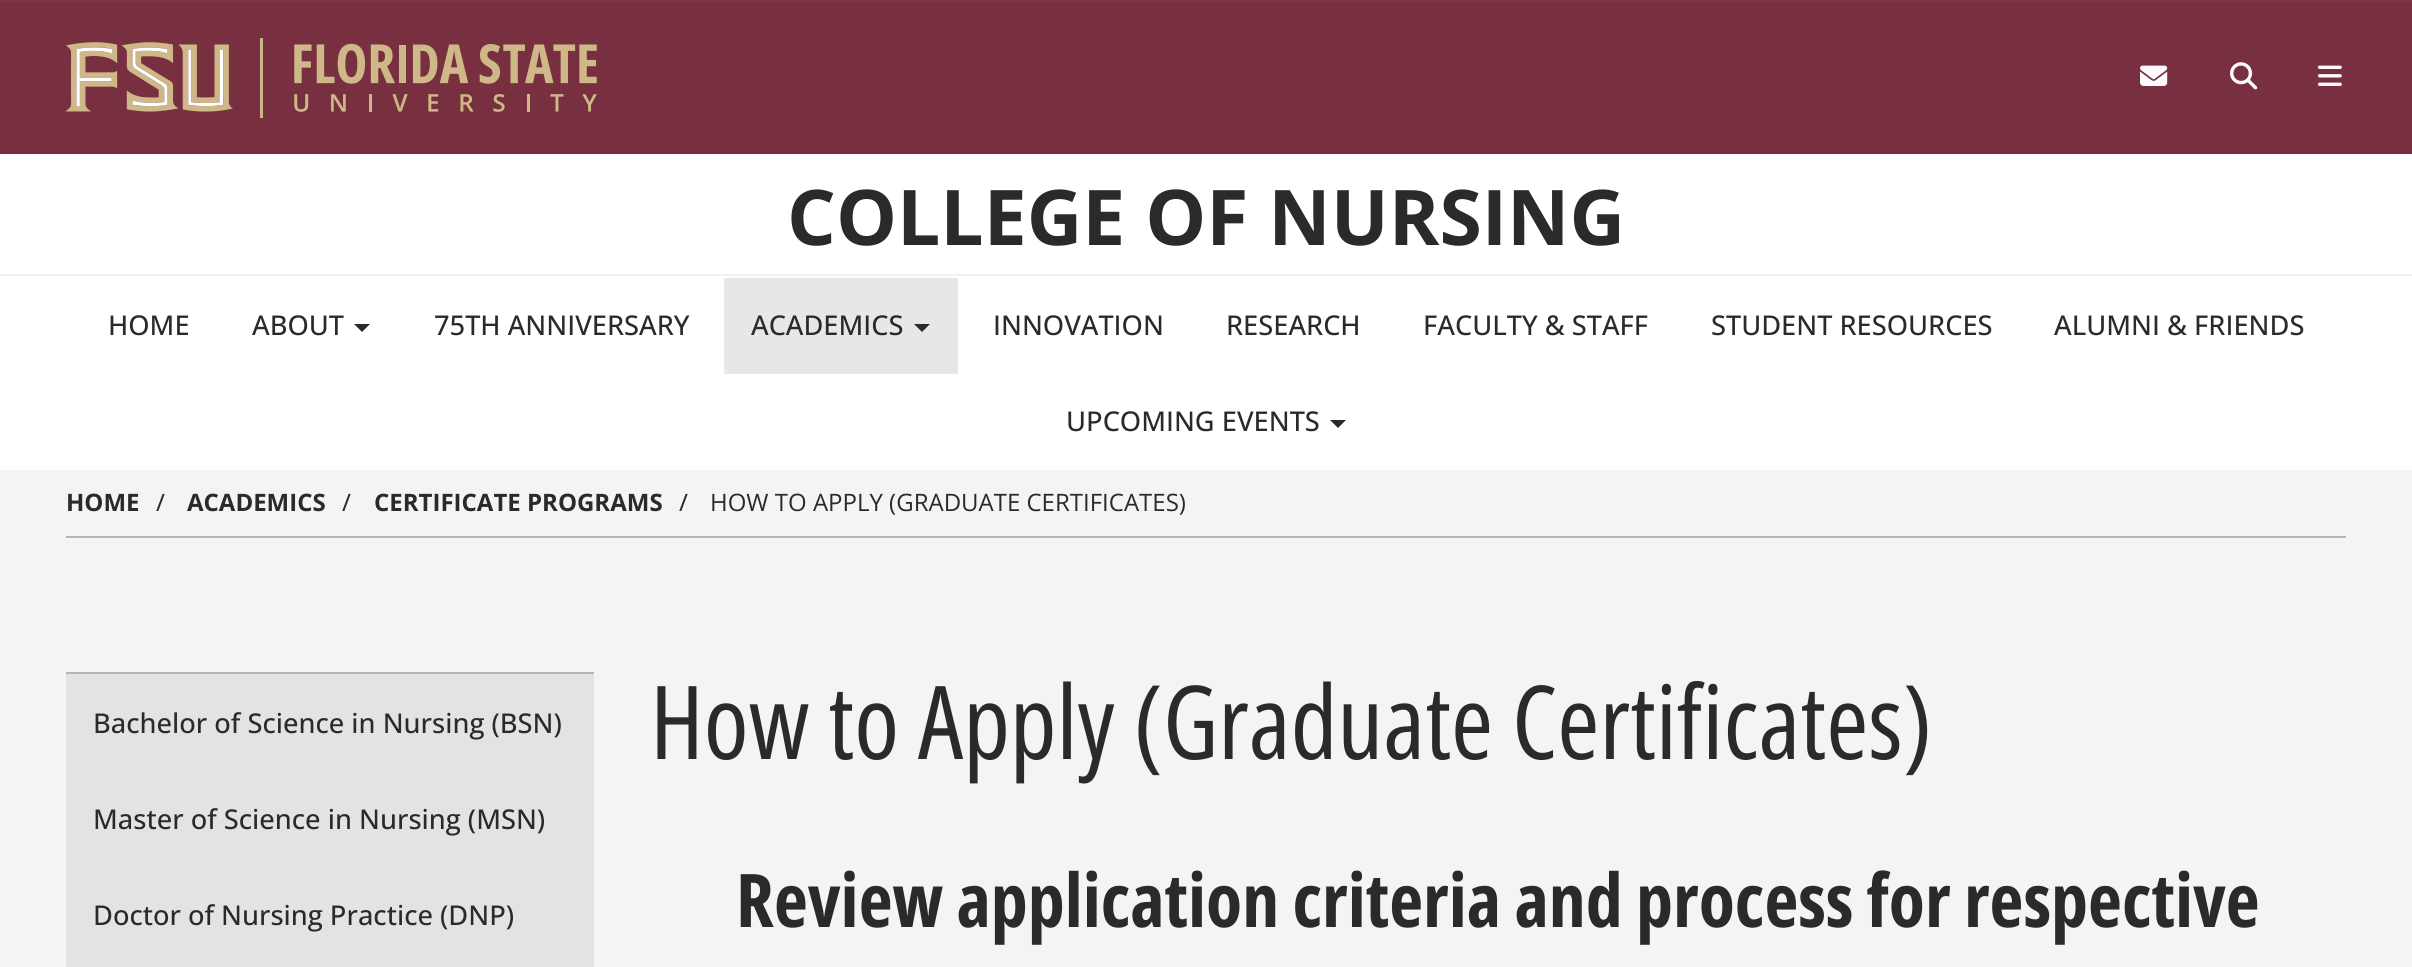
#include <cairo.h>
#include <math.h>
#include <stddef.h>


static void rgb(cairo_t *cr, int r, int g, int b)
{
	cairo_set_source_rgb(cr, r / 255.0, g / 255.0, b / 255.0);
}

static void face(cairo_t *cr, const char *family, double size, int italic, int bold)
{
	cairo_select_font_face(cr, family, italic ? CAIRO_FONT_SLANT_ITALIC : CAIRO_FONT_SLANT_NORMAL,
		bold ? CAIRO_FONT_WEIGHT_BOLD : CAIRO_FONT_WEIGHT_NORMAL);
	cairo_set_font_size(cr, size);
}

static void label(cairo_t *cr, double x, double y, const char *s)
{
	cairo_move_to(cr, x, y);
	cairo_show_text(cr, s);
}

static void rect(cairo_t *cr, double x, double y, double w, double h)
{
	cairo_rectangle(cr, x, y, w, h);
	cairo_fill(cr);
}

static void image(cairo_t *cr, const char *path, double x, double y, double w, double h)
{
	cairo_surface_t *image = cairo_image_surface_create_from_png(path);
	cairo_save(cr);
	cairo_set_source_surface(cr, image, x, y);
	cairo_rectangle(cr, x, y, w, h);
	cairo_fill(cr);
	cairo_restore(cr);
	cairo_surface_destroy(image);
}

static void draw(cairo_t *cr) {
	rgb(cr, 120, 47, 64);
	cairo_paint(cr);
	rgb(cr, 124, 53, 70);
	rect(cr, 0, 0, 2412, 2);
	rgb(cr, 114, 45, 61);
	rect(cr, 0, 152, 2412, 2);
	image(cr, "image0.png", 65, 38, 532, 80);
	image(cr, "image1.png", 2140, 65, 28, 21);
	image(cr, "image2.png", 2230, 62, 28, 28);
	image(cr, "image3.png", 2318, 65, 24, 21);
	rgb(cr, 255, 255, 255);
	rect(cr, 0, 154, 2412, 120);
	rgb(cr, 243, 242, 242);
	rect(cr, 0, 274, 2412, 2);
	face(cr, "Open Sans", 76.75, 0, 1);
	rgb(cr, 44, 42, 41);
	label(cr, 787, 245, "COLLEGE OF NURSING");
	rgb(cr, 255, 255, 255);
	rect(cr, 0, 276, 2412, 194);
	face(cr, "Open Sans Medium", 27.25, 0, 0);
	rgb(cr, 44, 42, 41);
	label(cr, 108, 335, "HOME");
	label(cr, 252, 335, "ABOUT");
	cairo_new_path(cr);
	cairo_move_to(cr, 354, 324);
	cairo_line_to(cr, 370, 324);
	cairo_line_to(cr, 362, 332);
	cairo_close_path(cr);
	cairo_fill(cr);
	label(cr, 434, 335, "75TH ANNIVERSARY");
	rgb(cr, 231, 231, 231);
	rect(cr, 724, 278, 234, 96);
	rgb(cr, 44, 42, 41);
	label(cr, 751, 335, "ACADEMICS");
	cairo_new_path(cr);
	cairo_move_to(cr, 914, 324);
	cairo_line_to(cr, 930, 324);
	cairo_line_to(cr, 922, 332);
	cairo_close_path(cr);
	cairo_fill(cr);
	label(cr, 993, 335, "INNOVATION");
	label(cr, 1226, 335, "RESEARCH");
	label(cr, 1423, 335, "FACULTY & STAFF");
	label(cr, 1711, 335, "STUDENT RESOURCES");
	label(cr, 2054, 335, "ALUMNI & FRIENDS");
	label(cr, 1066, 431, "UPCOMING EVENTS");
	cairo_new_path(cr);
	cairo_move_to(cr, 1330, 420);
	cairo_line_to(cr, 1346, 420);
	cairo_line_to(cr, 1338, 428);
	cairo_close_path(cr);
	cairo_fill(cr);
	rgb(cr, 244, 244, 244);
	rect(cr, 0, 470, 2412, 497);
	face(cr, "Open Sans", 24, 0, 1);
	rgb(cr, 44, 42, 41);
	label(cr, 66, 511, "HOME");
	face(cr, "Open Sans", 24, 0, 0);
	label(cr, 156, 511, "/");
	face(cr, "Open Sans", 24, 0, 1);
	label(cr, 187, 511, "ACADEMICS");
	face(cr, "Open Sans", 24, 0, 0);
	label(cr, 342, 511, "/");
	face(cr, "Open Sans", 24, 0, 1);
	label(cr, 374, 511, "CERTIFICATE PROGRAMS");
	face(cr, "Open Sans", 24, 0, 0);
	label(cr, 679, 511, "/");
	face(cr, "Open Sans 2", 24, 0, 0);
	label(cr, 710, 511, "HOW TO APPLY (GRADUATE CERTIFICATES)");
	rgb(cr, 181, 181, 180);
	rect(cr, 66, 536, 2280, 2);
	rect(cr, 66, 672, 528, 2);
	rgb(cr, 227, 227, 227);
	rect(cr, 66, 674, 528, 293);
	face(cr, "Open Sans Medium", 27.25, 0, 0);
	rgb(cr, 44, 42, 41);
	label(cr, 93, 733, "Bachelor of Science in Nursing (BSN)");
	label(cr, 93, 829, "Master of Science in Nursing (MSN)");
	label(cr, 93, 925, "Doctor of Nursing Practice (DNP)");
	face(cr, "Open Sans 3", 102, 0, 0);
	label(cr, 650, 759, "How to Apply (Graduate Certificates)");
	face(cr, "Open Sans 2", 74, 0, 1);
	label(cr, 736, 927, "Review application criteria and process for respective");
}

int main(void) {
	cairo_surface_t *surface = cairo_image_surface_create(CAIRO_FORMAT_RGB24, 2412, 967);
	cairo_t *cr = cairo_create(surface);
	cairo_font_options_t *options = cairo_font_options_create();
	cairo_font_options_set_hint_metrics(options, CAIRO_HINT_METRICS_OFF);
	cairo_font_options_set_hint_style(options, CAIRO_HINT_STYLE_NONE);
	cairo_set_font_options(cr, options);
	cairo_set_miter_limit(cr, 4);
	draw(cr);
	cairo_surface_write_to_png(surface, "render.png");
	cairo_font_options_destroy(options);
	cairo_destroy(cr);
	cairo_surface_destroy(surface);
	return 0;
}
